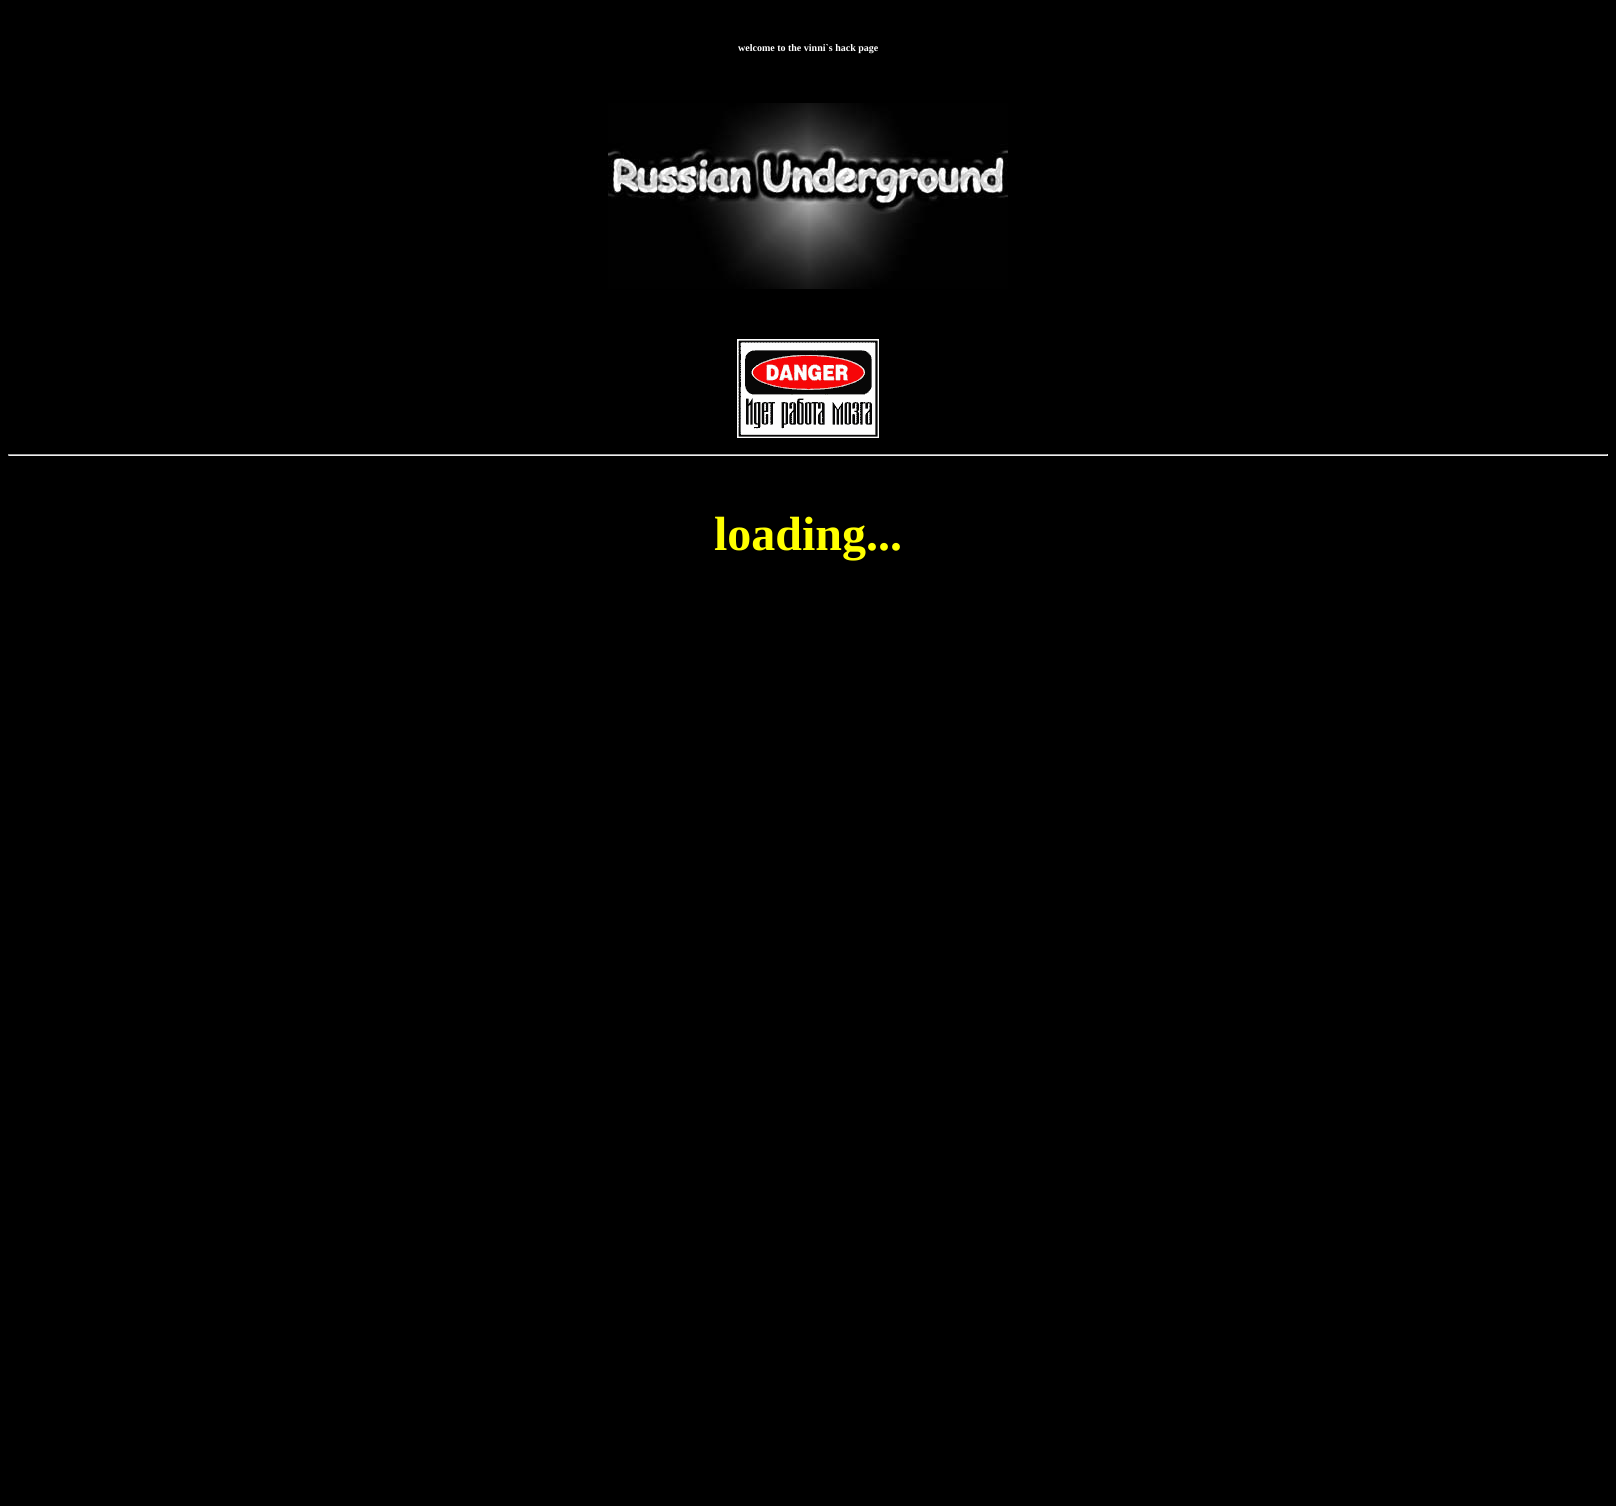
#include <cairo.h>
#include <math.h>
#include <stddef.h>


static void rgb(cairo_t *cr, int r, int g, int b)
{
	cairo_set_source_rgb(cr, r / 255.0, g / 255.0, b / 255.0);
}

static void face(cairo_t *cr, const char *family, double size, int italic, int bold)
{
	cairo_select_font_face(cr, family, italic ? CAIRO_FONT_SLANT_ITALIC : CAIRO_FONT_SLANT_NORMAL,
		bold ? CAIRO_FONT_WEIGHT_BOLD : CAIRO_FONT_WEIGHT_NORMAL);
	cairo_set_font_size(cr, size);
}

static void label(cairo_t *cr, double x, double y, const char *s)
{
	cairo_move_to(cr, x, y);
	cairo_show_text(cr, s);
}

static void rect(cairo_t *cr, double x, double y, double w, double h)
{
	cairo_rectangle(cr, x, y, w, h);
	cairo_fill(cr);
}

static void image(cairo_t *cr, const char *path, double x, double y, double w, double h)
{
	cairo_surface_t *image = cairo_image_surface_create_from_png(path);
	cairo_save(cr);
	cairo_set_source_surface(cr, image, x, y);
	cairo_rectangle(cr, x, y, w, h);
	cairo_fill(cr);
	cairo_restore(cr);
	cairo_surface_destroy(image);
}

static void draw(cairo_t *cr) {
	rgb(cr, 0, 0, 0);
	cairo_paint(cr);
	face(cr, "Liberation Serif", 10, 0, 1);
	rgb(cr, 255, 255, 255);
	label(cr, 738, 51, "welcome to the vinni`s hack page");
	image(cr, "image0.png", 608, 103, 400, 186);
	image(cr, "image1.png", 737, 339, 142, 99);
	rgb(cr, 159, 159, 159);
	rect(cr, 8, 454, 1600, 1);
	rgb(cr, 238, 238, 238);
	rect(cr, 1607, 454, 1, 2);
	rect(cr, 8, 455, 1600, 1);
	rgb(cr, 159, 159, 159);
	rect(cr, 8, 454, 1, 2);
	face(cr, "Liberation Serif", 48, 0, 1);
	rgb(cr, 255, 255, 0);
	label(cr, 714, 550, "loading...");
}

int main(void) {
	cairo_surface_t *surface = cairo_image_surface_create(CAIRO_FORMAT_RGB24, 1616, 1506);
	cairo_t *cr = cairo_create(surface);
	cairo_font_options_t *options = cairo_font_options_create();
	cairo_font_options_set_hint_metrics(options, CAIRO_HINT_METRICS_OFF);
	cairo_font_options_set_hint_style(options, CAIRO_HINT_STYLE_NONE);
	cairo_set_font_options(cr, options);
	cairo_set_miter_limit(cr, 4);
	draw(cr);
	cairo_surface_write_to_png(surface, "render.png");
	cairo_font_options_destroy(options);
	cairo_destroy(cr);
	cairo_surface_destroy(surface);
	return 0;
}
